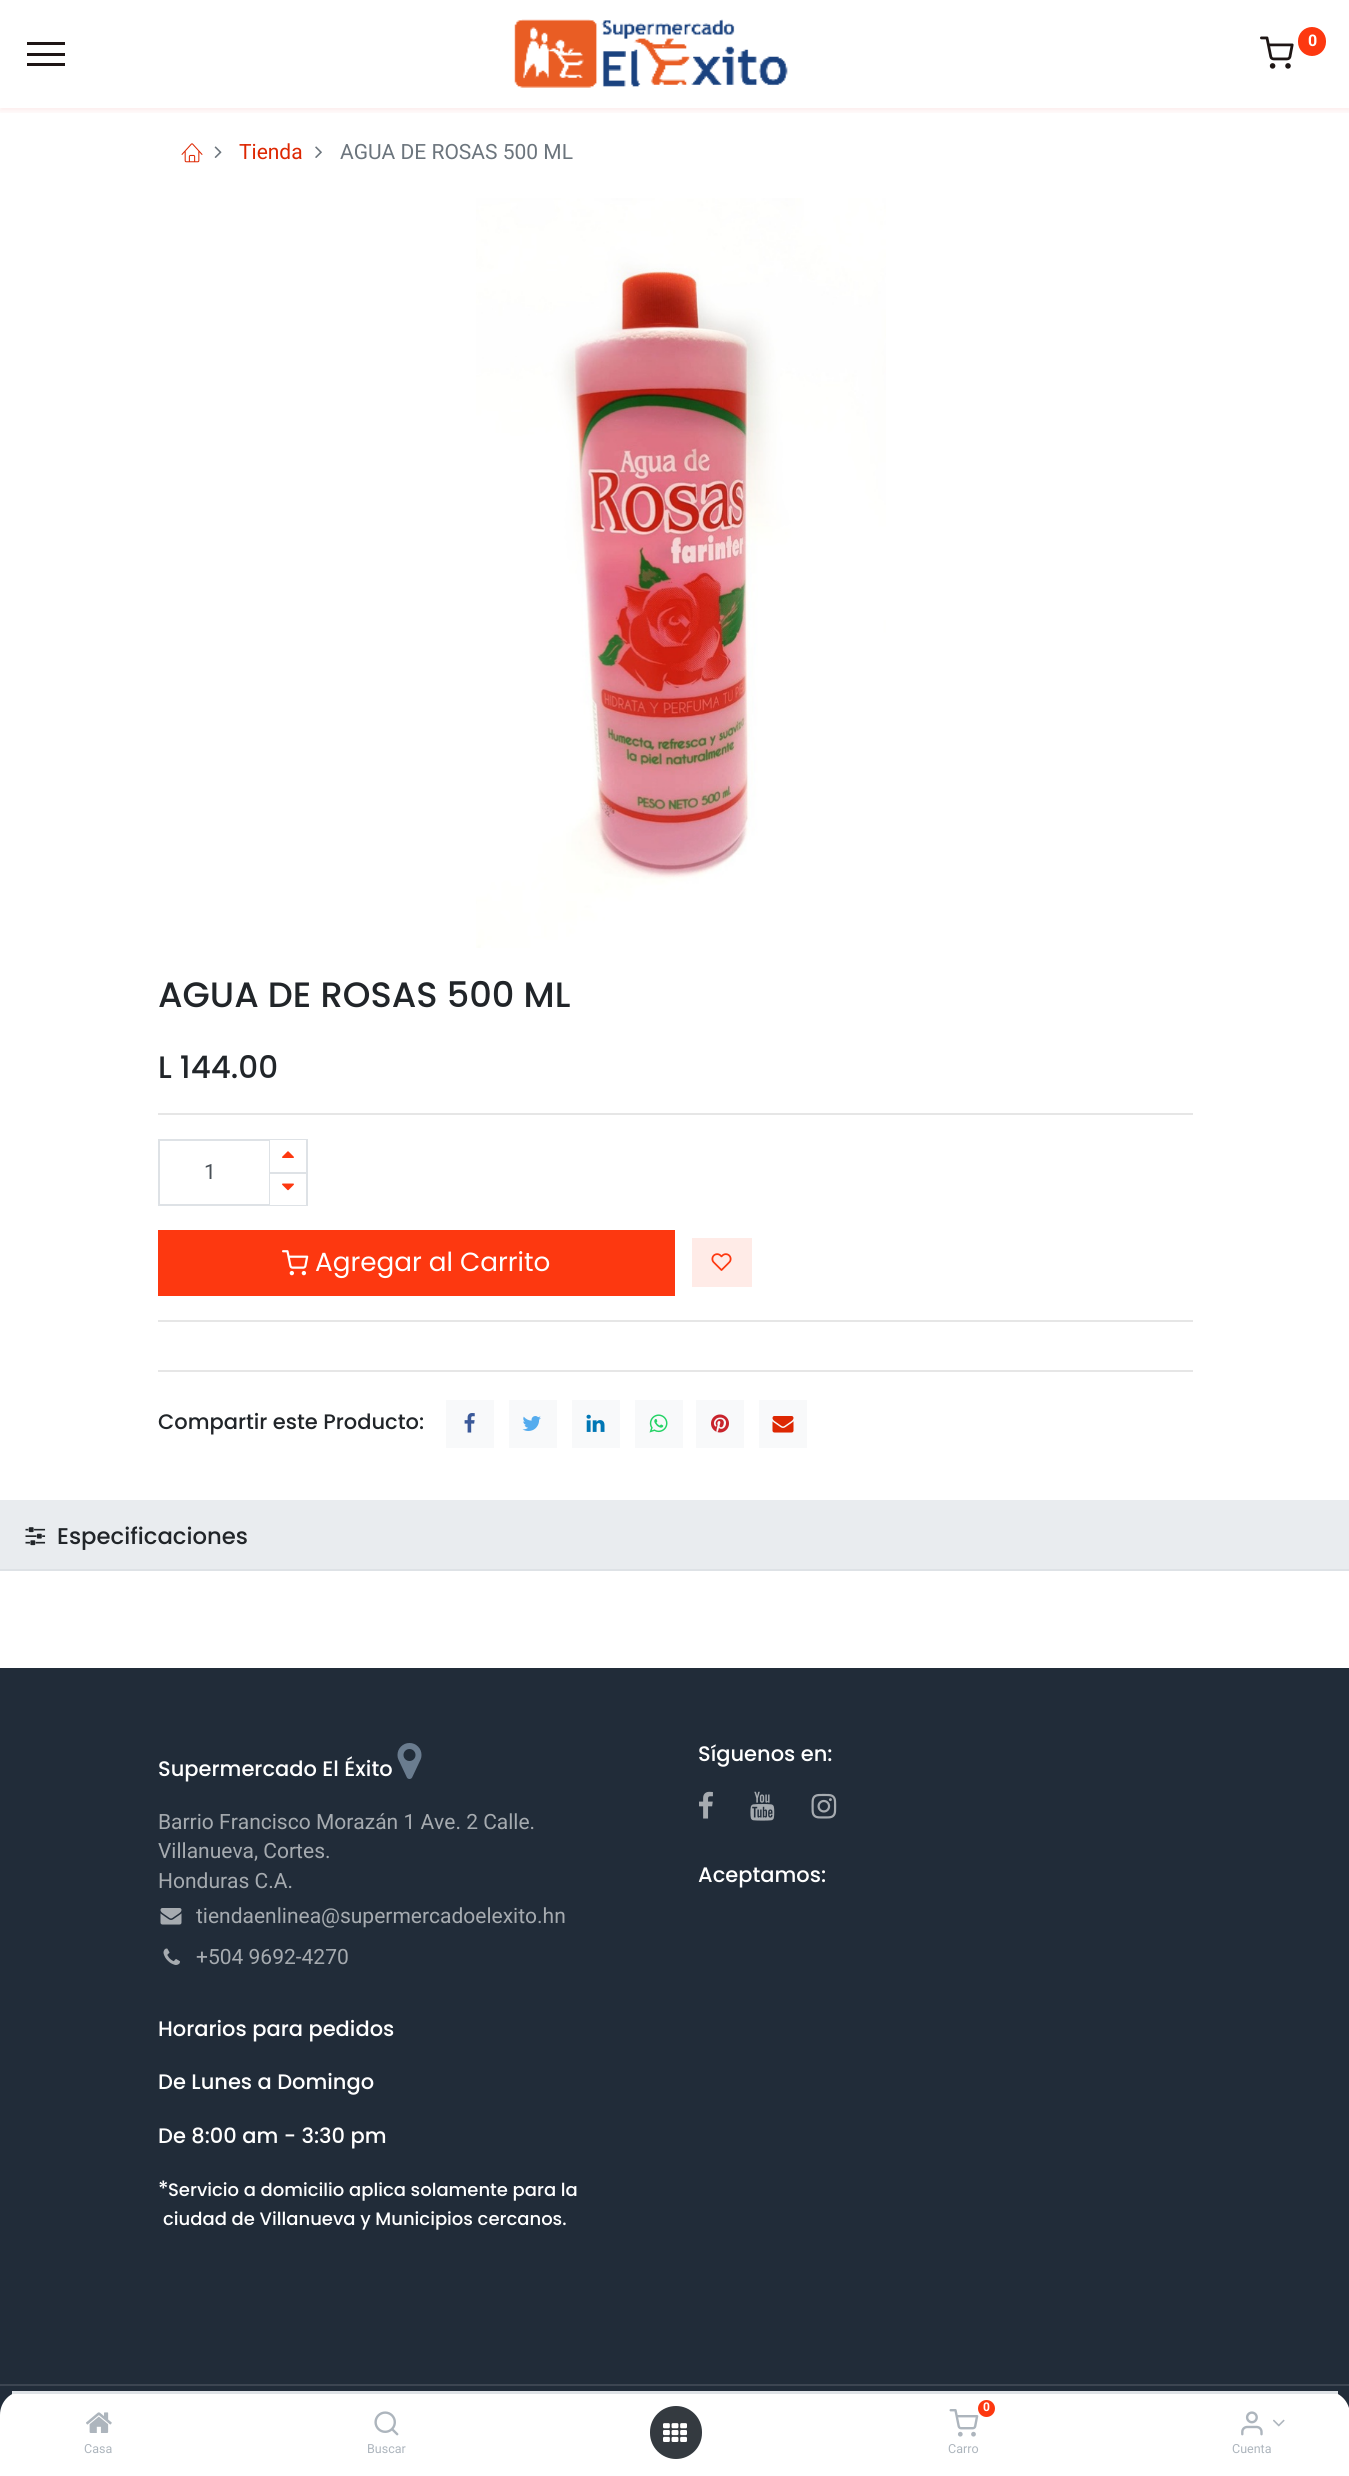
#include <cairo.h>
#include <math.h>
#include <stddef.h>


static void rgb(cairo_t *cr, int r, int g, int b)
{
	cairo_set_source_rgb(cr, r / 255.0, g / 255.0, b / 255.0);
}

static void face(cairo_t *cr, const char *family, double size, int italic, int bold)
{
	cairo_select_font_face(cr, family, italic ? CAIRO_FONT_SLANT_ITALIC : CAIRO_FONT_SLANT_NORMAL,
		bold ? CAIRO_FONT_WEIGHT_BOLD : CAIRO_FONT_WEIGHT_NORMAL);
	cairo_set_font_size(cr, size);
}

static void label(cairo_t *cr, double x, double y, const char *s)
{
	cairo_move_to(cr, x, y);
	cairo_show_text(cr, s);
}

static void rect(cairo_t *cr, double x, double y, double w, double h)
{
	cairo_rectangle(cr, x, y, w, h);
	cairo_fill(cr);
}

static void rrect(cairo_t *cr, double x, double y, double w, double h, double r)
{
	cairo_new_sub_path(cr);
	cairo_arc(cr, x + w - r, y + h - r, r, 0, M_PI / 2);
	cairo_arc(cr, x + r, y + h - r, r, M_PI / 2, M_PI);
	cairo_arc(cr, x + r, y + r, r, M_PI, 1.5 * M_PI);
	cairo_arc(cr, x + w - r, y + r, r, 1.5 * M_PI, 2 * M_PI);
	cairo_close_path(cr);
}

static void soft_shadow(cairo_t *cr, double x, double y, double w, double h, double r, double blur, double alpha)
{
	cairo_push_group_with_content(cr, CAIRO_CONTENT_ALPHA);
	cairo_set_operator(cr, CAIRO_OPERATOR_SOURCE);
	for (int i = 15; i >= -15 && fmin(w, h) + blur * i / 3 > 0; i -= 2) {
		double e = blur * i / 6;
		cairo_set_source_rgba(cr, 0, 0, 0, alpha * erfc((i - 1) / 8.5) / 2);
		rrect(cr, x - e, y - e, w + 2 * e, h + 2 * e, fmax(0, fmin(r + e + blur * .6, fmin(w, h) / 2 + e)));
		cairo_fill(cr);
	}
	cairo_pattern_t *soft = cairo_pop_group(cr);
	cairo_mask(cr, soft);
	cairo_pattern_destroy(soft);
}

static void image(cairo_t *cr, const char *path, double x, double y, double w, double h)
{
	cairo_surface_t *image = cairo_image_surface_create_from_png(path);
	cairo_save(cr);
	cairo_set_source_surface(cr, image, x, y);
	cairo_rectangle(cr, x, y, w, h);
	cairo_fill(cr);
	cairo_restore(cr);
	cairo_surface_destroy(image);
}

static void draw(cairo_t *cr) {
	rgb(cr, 255, 255, 255);
	cairo_paint(cr);
	cairo_save(cr);
	cairo_rectangle(cr, 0, 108, 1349, 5);
	cairo_clip(cr);
	rgb(cr, 221, 12, 12);
	soft_shadow(cr, 0, 3, 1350, 108, 0, 3, 0.08);
	cairo_restore(cr);
	image(cr, "image0.png", 514, 19, 274, 69);
	image(cr, "image1.png", 1260, 36, 34, 33);
	rgb(cr, 253, 56, 16);
	rrect(cr, 1298, 27, 28, 29, 14);
	cairo_fill(cr);
	face(cr, "Roboto", 16, 0, 1);
	rgb(cr, 255, 255, 255);
	label(cr, 1308, 46, "0");
	rgb(cr, 30, 22, 21);
	rect(cr, 27, 42, 38, 3);
	rect(cr, 27, 53, 38, 3);
	rect(cr, 27, 63, 38, 3);
	image(cr, "image2.png", 181, 143, 22, 20);
	image(cr, "image3.png", 214, 146, 8, 12);
	face(cr, "Roboto", 21, 0, 0);
	rgb(cr, 221, 39, 2);
	label(cr, 239, 159, "Tienda");
	image(cr, "image4.png", 315, 146, 7, 12);
	rgb(cr, 108, 117, 125);
	label(cr, 340, 159, "AGUA DE ROSAS 500 ML");
	image(cr, "image5.png", 476, 198, 410, 750);
	face(cr, "Poppins Medium", 35.25, 0, 0);
	rgb(cr, 33, 37, 41);
	label(cr, 158, 1007, "AGUA DE ROSAS 500 ML");
	face(cr, "Poppins Medium", 31, 0, 0);
	label(cr, 158, 1078, "L 144.00");
	rgb(cr, 230, 230, 230);
	rect(cr, 158, 1113, 1035, 2);
	cairo_rectangle(cr, 159, 1140, 148, 65);
	rgb(cr, 222, 226, 230);
	cairo_stroke(cr);
	face(cr, "Roboto", 21, 0, 0);
	rgb(cr, 73, 80, 87);
	label(cr, 204, 1179, "1");
	rgb(cr, 222, 226, 230);
	rect(cr, 269, 1172, 1, 33);
	rect(cr, 269, 1172, 37, 2);
	rect(cr, 269, 1140, 2, 33);
	rgb(cr, 255, 255, 255);
	rect(cr, 270, 1140, 36, 32);
	image(cr, "image6.png", 282, 1151, 12, 7);
	rect(cr, 270, 1204, 36, 1);
	image(cr, "image7.png", 282, 1183, 12, 8);
	rgb(cr, 253, 56, 16);
	rect(cr, 158, 1230, 517, 66);
	image(cr, "image8.png", 282, 1250, 27, 26);
	face(cr, "Poppins", 26.25, 0, 0);
	rgb(cr, 255, 255, 255);
	label(cr, 315, 1271, "Agregar al Carrito");
	rgb(cr, 255, 235, 231);
	rect(cr, 692, 1238, 60, 49);
	image(cr, "image9.png", 711, 1253, 21, 18);
	rgb(cr, 230, 230, 230);
	rect(cr, 158, 1320, 1035, 2);
	rect(cr, 158, 1370, 1035, 2);
	face(cr, "Poppins Medium", 21, 0, 0);
	rgb(cr, 33, 37, 41);
	label(cr, 158, 1429, "Compartir este Producto:");
	rgb(cr, 248, 249, 250);
	rect(cr, 446, 1400, 48, 48);
	image(cr, "image10.png", 464, 1413, 11, 20);
	rect(cr, 509, 1400, 48, 48);
	image(cr, "image11.png", 522, 1416, 19, 15);
	rect(cr, 572, 1400, 48, 48);
	image(cr, "image12.png", 586, 1414, 19, 18);
	rect(cr, 635, 1400, 48, 48);
	image(cr, "image13.png", 649, 1414, 19, 19);
	rect(cr, 696, 1400, 48, 48);
	image(cr, "image14.png", 711, 1414, 18, 19);
	rect(cr, 759, 1400, 48, 48);
	image(cr, "image15.png", 772, 1416, 22, 17);
	rgb(cr, 233, 236, 239);
	rect(cr, 0, 1500, 1349, 69);
	rgb(cr, 222, 226, 230);
	rect(cr, 0, 1569, 1349, 2);
	image(cr, "image16.png", 25, 1527, 21, 19);
	face(cr, "Poppins Medium", 22.75, 0, 0);
	rgb(cr, 33, 37, 41);
	label(cr, 57, 1544, "Especificaciones");
	rgb(cr, 33, 44, 57);
	rect(cr, 0, 1668, 1349, 747);
	face(cr, "Poppins Medium", 21, 0, 0);
	rgb(cr, 255, 255, 255);
	label(cr, 158, 1776, "Supermercado El Éxito");
	image(cr, "image17.png", 397, 1743, 25, 36);
	face(cr, "Roboto", 21, 0, 0);
	rgb(cr, 166, 171, 176);
	label(cr, 158, 1829, "Barrio Francisco Morazán 1 Ave. 2 Calle.");
	label(cr, 158, 1858, "Villanueva, Cortes.");
	label(cr, 158, 1888, "Honduras C.A.");
	image(cr, "image18.png", 160, 1908, 22, 17);
	label(cr, 196, 1923, "tiendaenlinea@supermercadoelexito.hn");
	image(cr, "image19.png", 163, 1948, 17, 17);
	label(cr, 196, 1964, "+504 9692-4270");
	face(cr, "Poppins Medium", 21, 0, 0);
	rgb(cr, 255, 255, 255);
	label(cr, 698, 1761, "Síguenos en:");
	image(cr, "image20.png", 699, 1791, 14, 28);
	image(cr, "image21.png", 750, 1791, 25, 30);
	image(cr, "image22.png", 811, 1793, 26, 26);
	label(cr, 698, 1882, "Aceptamos:");
	label(cr, 158, 2036, "Horarios para pedidos");
	label(cr, 158, 2089, "De Lunes a Domingo");
	label(cr, 158, 2143, "De 8:00 am - 3:30 pm");
	label(cr, 158, 2196, "*");
	face(cr, "Poppins Medium", 18, 0, 0);
	label(cr, 168, 2196, "Servicio a domicilio aplica solamente para la");
	label(cr, 163, 2225, "ciudad de Villanueva y Municipios cercanos.");
	rgb(cr, 60, 69, 81);
	rect(cr, 0, 2384, 1349, 2);
	rgb(cr, 255, 255, 255);
	cairo_new_path(cr);
	cairo_move_to(cr, 24, 2391);
	cairo_line_to(cr, 1326, 2391);
	cairo_curve_to(cr, 1339.5, 2391, 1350, 2401.5, 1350, 2415);
	cairo_line_to(cr, 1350, 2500);
	cairo_line_to(cr, 0, 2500);
	cairo_line_to(cr, 0, 2415);
	cairo_curve_to(cr, 0, 2401.5, 10.5, 2391, 24, 2391);
	cairo_close_path(cr);
	cairo_fill(cr);
	rgb(cr, 222, 226, 230);
	rect(cr, 12, 2391, 1326, 3);
	image(cr, "image23.png", 86, 2412, 26, 21);
	face(cr, "Roboto", 12.5, 0, 0);
	rgb(cr, 173, 181, 189);
	label(cr, 84, 2453, "Casa");
	image(cr, "image24.png", 374, 2411, 25, 25);
	label(cr, 367, 2453, "Buscar");
	rgb(cr, 52, 58, 64);
	rrect(cr, 650, 2406, 52, 53, 26);
	cairo_fill(cr);
	image(cr, "image25.png", 663, 2423, 24, 19);
	image(cr, "image26.png", 949, 2409, 30, 28);
	rgb(cr, 253, 56, 16);
	cairo_arc(cr, 986.5, 2408.5, 8.5, 0, 2 * M_PI);
	cairo_fill(cr);
	face(cr, "Roboto", 12, 0, 1);
	rgb(cr, 255, 255, 255);
	label(cr, 983, 2411, "0");
	face(cr, "Roboto", 12.5, 0, 0);
	rgb(cr, 173, 181, 189);
	label(cr, 948, 2453, "Carro");
	image(cr, "image27.png", 1241, 2411, 22, 25);
	image(cr, "image28.png", 1273, 2419, 12, 8);
	label(cr, 1232, 2453, "Cuenta");
}

int main(void) {
	cairo_surface_t *surface = cairo_image_surface_create(CAIRO_FORMAT_RGB24, 1349, 2476);
	cairo_t *cr = cairo_create(surface);
	cairo_font_options_t *options = cairo_font_options_create();
	cairo_font_options_set_hint_metrics(options, CAIRO_HINT_METRICS_OFF);
	cairo_font_options_set_hint_style(options, CAIRO_HINT_STYLE_NONE);
	cairo_set_font_options(cr, options);
	cairo_set_miter_limit(cr, 4);
	draw(cr);
	cairo_surface_write_to_png(surface, "render.png");
	cairo_font_options_destroy(options);
	cairo_destroy(cr);
	cairo_surface_destroy(surface);
	return 0;
}
